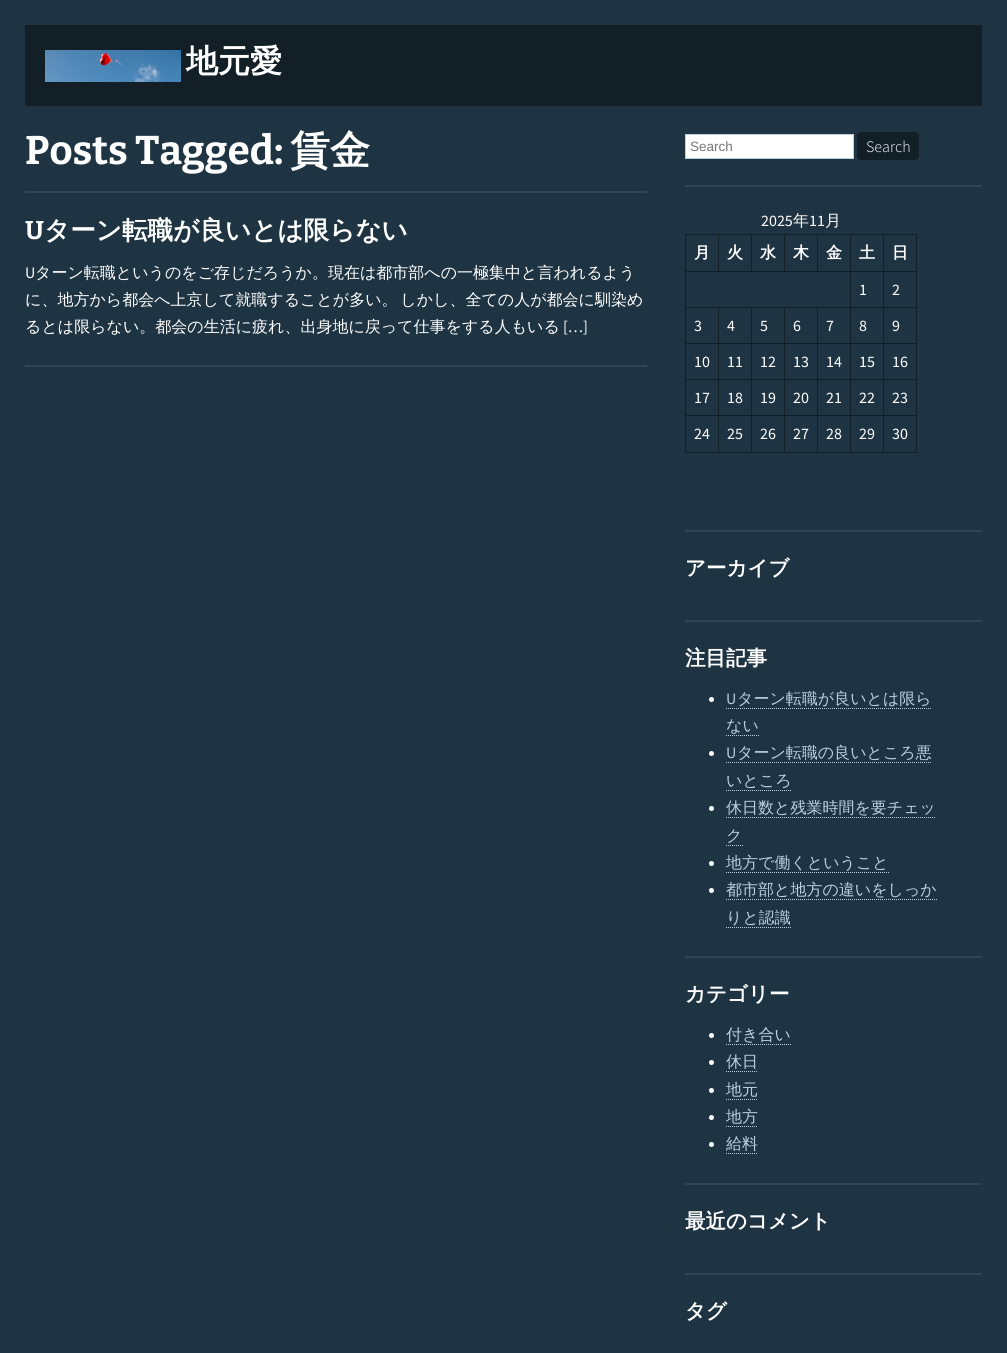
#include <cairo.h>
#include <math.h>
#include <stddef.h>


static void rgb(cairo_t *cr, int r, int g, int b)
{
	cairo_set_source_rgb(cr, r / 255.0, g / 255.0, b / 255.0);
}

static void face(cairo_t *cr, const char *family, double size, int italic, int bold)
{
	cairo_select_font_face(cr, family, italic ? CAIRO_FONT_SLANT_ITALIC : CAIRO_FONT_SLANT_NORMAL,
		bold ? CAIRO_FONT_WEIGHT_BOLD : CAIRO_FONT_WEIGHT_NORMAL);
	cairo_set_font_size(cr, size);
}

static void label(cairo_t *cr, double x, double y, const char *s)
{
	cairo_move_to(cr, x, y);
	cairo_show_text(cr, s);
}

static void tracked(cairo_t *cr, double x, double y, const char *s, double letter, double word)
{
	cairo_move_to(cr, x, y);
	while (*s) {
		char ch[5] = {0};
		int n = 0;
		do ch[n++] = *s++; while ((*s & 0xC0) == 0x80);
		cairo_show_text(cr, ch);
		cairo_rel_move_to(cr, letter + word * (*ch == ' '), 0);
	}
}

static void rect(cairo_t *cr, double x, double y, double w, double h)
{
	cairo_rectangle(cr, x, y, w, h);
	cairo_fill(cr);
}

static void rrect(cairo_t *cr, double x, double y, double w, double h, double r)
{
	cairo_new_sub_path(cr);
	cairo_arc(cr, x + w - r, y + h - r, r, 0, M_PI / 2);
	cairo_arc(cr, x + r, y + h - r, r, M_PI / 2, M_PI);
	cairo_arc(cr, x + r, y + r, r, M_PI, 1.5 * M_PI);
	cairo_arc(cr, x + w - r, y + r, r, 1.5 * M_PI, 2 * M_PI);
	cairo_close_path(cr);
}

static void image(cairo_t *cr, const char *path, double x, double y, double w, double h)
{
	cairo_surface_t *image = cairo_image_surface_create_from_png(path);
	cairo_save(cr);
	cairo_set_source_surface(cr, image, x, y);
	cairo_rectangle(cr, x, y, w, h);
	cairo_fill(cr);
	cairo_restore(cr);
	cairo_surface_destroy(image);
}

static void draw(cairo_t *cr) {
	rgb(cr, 30, 52, 66);
	cairo_paint(cr);
	rgb(cr, 18, 31, 39);
	rect(cr, 25, 25, 957, 81);
	image(cr, "image0.png", 45, 50, 136, 32);
	face(cr, "WenQuanYi Zen Hei", 32, 0, 1);
	rgb(cr, 255, 255, 255);
	label(cr, 186, 72, "地元愛");
	rgb(cr, 48, 68, 81);
	rect(cr, 25, 191, 622, 2);
	face(cr, "Bitter", 40, 0, 1);
	rgb(cr, 255, 255, 255);
	label(cr, 25, 164, "Posts Tagged:");
	face(cr, "WenQuanYi Zen Hei", 40, 0, 1);
	label(cr, 290, 164, "賃金");
	rgb(cr, 48, 68, 81);
	rect(cr, 25, 365, 622, 2);
	face(cr, "Bitter", 25.6, 0, 1);
	rgb(cr, 255, 255, 255);
	label(cr, 25, 239, "U");
	face(cr, "WenQuanYi Zen Hei", 25.6, 0, 1);
	label(cr, 44, 239, "ターン転職が良いとは限らない");
	face(cr, "Source Sans Pro", 16, 0, 0);
	label(cr, 25, 278, "U");
	face(cr, "WenQuanYi Zen Hei Medium", 16, 0, 0);
	label(cr, 35, 278, "ターン転職というのをご存じだろうか。現在は都市部への一極集中と言われるよう");
	tracked(cr, 25, 305, "に、地方から都会へ上京して就職することが多い。 しかし、全ての人が都会に馴染め", 0, -2);
	label(cr, 25, 332, "るとは限らない。都会の生活に疲れ、出身地に戻って仕事をする人もいる");
	face(cr, "Source Sans Pro", 16, 0, 0);
	label(cr, 563, 332, "[…]");
	rgb(cr, 48, 68, 81);
	rect(cr, 685, 185, 297, 2);
	rgb(cr, 255, 255, 255);
	cairo_rectangle(cr, 685.5, 134.5, 168, 24);
	cairo_fill_preserve(cr);
	rgb(cr, 187, 209, 223);
	cairo_set_line_width(cr, 1);
	cairo_stroke(cr);
	face(cr, "Liberation Sans", 13.5, 0, 0);
	rgb(cr, 117, 117, 117);
	label(cr, 690, 151, "Search");
	rgb(cr, 18, 31, 39);
	rrect(cr, 857, 132, 62, 28, 4);
	cairo_fill(cr);
	face(cr, "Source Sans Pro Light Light", 16, 0, 0);
	rgb(cr, 255, 255, 255);
	label(cr, 866, 152, "Search");
	rgb(cr, 48, 68, 81);
	rect(cr, 685, 530, 297, 2);
	face(cr, "Source Sans Pro", 16, 0, 0);
	rgb(cr, 255, 255, 255);
	label(cr, 761, 226, "2025");
	face(cr, "WenQuanYi Zen Hei Medium", 16, 0, 0);
	label(cr, 793, 226, "年");
	face(cr, "Source Sans Pro", 16, 0, 0);
	label(cr, 809, 226, "11");
	face(cr, "WenQuanYi Zen Hei Medium", 16, 0, 0);
	label(cr, 825, 226, "月");
	rgb(cr, 18, 31, 39);
	rect(cr, 883, 234, 34, 1);
	rect(cr, 883, 271, 34, 1);
	rect(cr, 883, 307, 34, 1);
	rect(cr, 883, 343, 34, 1);
	rect(cr, 883, 379, 34, 1);
	rect(cr, 883, 415, 34, 1);
	rect(cr, 916, 415, 1, 38);
	rect(cr, 883, 452, 34, 1);
	rect(cr, 883, 415, 1, 38);
	rect(cr, 850, 415, 34, 1);
	rect(cr, 883, 379, 1, 37);
	rect(cr, 850, 379, 34, 1);
	rect(cr, 883, 343, 1, 37);
	rect(cr, 850, 343, 34, 1);
	rect(cr, 883, 307, 1, 37);
	rect(cr, 850, 307, 34, 1);
	rect(cr, 883, 271, 1, 37);
	rect(cr, 850, 271, 34, 1);
	rect(cr, 883, 234, 1, 38);
	rect(cr, 850, 234, 34, 1);
	rect(cr, 850, 452, 34, 1);
	rect(cr, 850, 415, 1, 38);
	rect(cr, 817, 415, 34, 1);
	rect(cr, 850, 379, 1, 37);
	rect(cr, 817, 379, 34, 1);
	rect(cr, 850, 343, 1, 37);
	rect(cr, 817, 343, 34, 1);
	rect(cr, 850, 307, 1, 37);
	rect(cr, 817, 307, 34, 1);
	rect(cr, 850, 271, 1, 37);
	rect(cr, 685, 271, 166, 1);
	rect(cr, 850, 234, 1, 38);
	rect(cr, 817, 234, 34, 1);
	rect(cr, 817, 234, 1, 38);
	rect(cr, 784, 234, 34, 1);
	rect(cr, 784, 234, 1, 38);
	rect(cr, 751, 234, 34, 1);
	rect(cr, 751, 234, 1, 38);
	rect(cr, 718, 234, 34, 1);
	rect(cr, 718, 234, 1, 38);
	rect(cr, 685, 234, 34, 1);
	rect(cr, 817, 452, 34, 1);
	rect(cr, 817, 415, 1, 38);
	rect(cr, 784, 415, 34, 1);
	rect(cr, 817, 379, 1, 37);
	rect(cr, 784, 379, 34, 1);
	rect(cr, 817, 343, 1, 37);
	rect(cr, 784, 343, 34, 1);
	rect(cr, 817, 307, 1, 37);
	rect(cr, 784, 307, 34, 1);
	rect(cr, 784, 452, 34, 1);
	rect(cr, 784, 415, 1, 38);
	rect(cr, 751, 415, 34, 1);
	rect(cr, 784, 379, 1, 37);
	rect(cr, 751, 379, 34, 1);
	rect(cr, 784, 343, 1, 37);
	rect(cr, 751, 343, 34, 1);
	rect(cr, 784, 307, 1, 37);
	rect(cr, 751, 307, 34, 1);
	rect(cr, 751, 452, 34, 1);
	rect(cr, 751, 415, 1, 38);
	rect(cr, 718, 415, 34, 1);
	rect(cr, 751, 379, 1, 37);
	rect(cr, 718, 379, 34, 1);
	rect(cr, 751, 343, 1, 37);
	rect(cr, 718, 343, 34, 1);
	rect(cr, 751, 307, 1, 37);
	rect(cr, 718, 307, 34, 1);
	rect(cr, 718, 452, 34, 1);
	rect(cr, 718, 415, 1, 38);
	rect(cr, 685, 415, 34, 1);
	rect(cr, 718, 379, 1, 37);
	rect(cr, 685, 379, 34, 1);
	rect(cr, 718, 343, 1, 37);
	rect(cr, 685, 343, 34, 1);
	rect(cr, 718, 307, 1, 37);
	rect(cr, 685, 307, 34, 1);
	rect(cr, 685, 452, 34, 1);
	rect(cr, 685, 415, 1, 38);
	rect(cr, 685, 379, 1, 37);
	rect(cr, 685, 343, 1, 37);
	rect(cr, 685, 307, 1, 37);
	rect(cr, 685, 271, 1, 37);
	rect(cr, 685, 234, 1, 38);
	face(cr, "WenQuanYi Zen Hei", 16, 0, 1);
	rgb(cr, 255, 255, 255);
	label(cr, 694, 258, "月");
	label(cr, 727, 258, "火");
	label(cr, 760, 258, "水");
	label(cr, 793, 258, "木");
	label(cr, 826, 258, "金");
	label(cr, 859, 258, "土");
	rgb(cr, 18, 31, 39);
	rect(cr, 916, 379, 1, 37);
	rect(cr, 916, 343, 1, 37);
	rect(cr, 916, 307, 1, 37);
	rect(cr, 916, 271, 1, 37);
	rect(cr, 916, 234, 1, 38);
	rgb(cr, 255, 255, 255);
	label(cr, 892, 258, "日");
	face(cr, "Source Sans Pro", 16, 0, 0);
	label(cr, 859, 295, "1");
	label(cr, 892, 295, "2");
	label(cr, 694, 331, "3");
	label(cr, 727, 331, "4");
	label(cr, 760, 331, "5");
	label(cr, 793, 331, "6");
	label(cr, 826, 331, "7");
	label(cr, 859, 331, "8");
	label(cr, 892, 331, "9");
	label(cr, 694, 367, "10");
	label(cr, 727, 367, "11");
	label(cr, 760, 367, "12");
	label(cr, 793, 367, "13");
	label(cr, 826, 367, "14");
	label(cr, 859, 367, "15");
	label(cr, 892, 367, "16");
	label(cr, 694, 403, "17");
	label(cr, 727, 403, "18");
	label(cr, 760, 403, "19");
	label(cr, 793, 403, "20");
	label(cr, 826, 403, "21");
	label(cr, 859, 403, "22");
	label(cr, 892, 403, "23");
	label(cr, 694, 439, "24");
	label(cr, 727, 439, "25");
	label(cr, 760, 439, "26");
	label(cr, 793, 439, "27");
	label(cr, 826, 439, "28");
	label(cr, 859, 439, "29");
	label(cr, 892, 439, "30");
	rgb(cr, 48, 68, 81);
	rect(cr, 685, 620, 297, 2);
	face(cr, "WenQuanYi Zen Hei", 20.5, 0, 1);
	rgb(cr, 255, 255, 255);
	label(cr, 685, 575, "アーカイブ");
	rgb(cr, 48, 68, 81);
	rect(cr, 685, 956, 297, 2);
	rgb(cr, 255, 255, 255);
	label(cr, 685, 665, "注目記事");
	cairo_new_path(cr);
	cairo_arc(cr, 711.5, 699.5, 2.5, 0, 2 * M_PI);
	cairo_fill(cr);
	face(cr, "Source Sans Pro", 16, 0, 0);
	rgb(cr, 187, 209, 223);
	label(cr, 726, 704, "U");
	cairo_new_path(cr);
	cairo_move_to(cr, 726, 708.5);
	cairo_line_to(cr, 931, 708.5);
	cairo_set_dash(cr, (double[]){1, 1}, 2, 0);
	cairo_stroke(cr);
	face(cr, "WenQuanYi Zen Hei Medium", 16, 0, 0);
	label(cr, 737, 704, "ターン転職が良いとは限ら");
	label(cr, 726, 731, "ない");
	cairo_new_path(cr);
	cairo_move_to(cr, 726, 735.5);
	cairo_line_to(cr, 759, 735.5);
	cairo_stroke(cr);
	rgb(cr, 255, 255, 255);
	cairo_arc(cr, 711.5, 753.5, 2.5, 0, 2 * M_PI);
	cairo_fill(cr);
	face(cr, "Source Sans Pro", 16, 0, 0);
	rgb(cr, 187, 209, 223);
	label(cr, 726, 758, "U");
	cairo_new_path(cr);
	cairo_move_to(cr, 726, 762.5);
	cairo_line_to(cr, 931, 762.5);
	cairo_stroke(cr);
	face(cr, "WenQuanYi Zen Hei Medium", 16, 0, 0);
	label(cr, 737, 758, "ターン転職の良いところ悪");
	label(cr, 726, 786, "いところ");
	cairo_new_path(cr);
	cairo_move_to(cr, 726, 790.5);
	cairo_line_to(cr, 792, 790.5);
	cairo_stroke(cr);
	rgb(cr, 255, 255, 255);
	cairo_arc(cr, 711.5, 808.5, 2.5, 0, 2 * M_PI);
	cairo_fill(cr);
	rgb(cr, 187, 209, 223);
	label(cr, 726, 813, "休日数と残業時間を要チェッ");
	cairo_new_path(cr);
	cairo_move_to(cr, 726, 817.5);
	cairo_line_to(cr, 936, 817.5);
	cairo_stroke(cr);
	label(cr, 726, 841, "ク");
	cairo_new_path(cr);
	cairo_move_to(cr, 726, 845.5);
	cairo_line_to(cr, 743, 845.5);
	cairo_stroke(cr);
	rgb(cr, 255, 255, 255);
	cairo_arc(cr, 711.5, 863.5, 2.5, 0, 2 * M_PI);
	cairo_fill(cr);
	rgb(cr, 187, 209, 223);
	label(cr, 726, 868, "地方で働くということ");
	cairo_new_path(cr);
	cairo_move_to(cr, 726, 872.5);
	cairo_line_to(cr, 889, 872.5);
	cairo_stroke(cr);
	rgb(cr, 255, 255, 255);
	cairo_arc(cr, 711.5, 890.5, 2.5, 0, 2 * M_PI);
	cairo_fill(cr);
	rgb(cr, 187, 209, 223);
	label(cr, 726, 895, "都市部と地方の違いをしっか");
	cairo_new_path(cr);
	cairo_move_to(cr, 726, 899.5);
	cairo_line_to(cr, 937, 899.5);
	cairo_stroke(cr);
	label(cr, 726, 923, "りと認識");
	cairo_new_path(cr);
	cairo_move_to(cr, 726, 927.5);
	cairo_line_to(cr, 791, 927.5);
	cairo_stroke(cr);
	rgb(cr, 48, 68, 81);
	rect(cr, 685, 1183, 297, 2);
	face(cr, "WenQuanYi Zen Hei", 20.5, 0, 1);
	rgb(cr, 255, 255, 255);
	label(cr, 685, 1001, "カテゴリー");
	cairo_new_path(cr);
	cairo_arc(cr, 711.5, 1035.5, 2.5, 0, 2 * M_PI);
	cairo_fill(cr);
	face(cr, "WenQuanYi Zen Hei Medium", 16, 0, 0);
	rgb(cr, 187, 209, 223);
	label(cr, 726, 1040, "付き合い");
	cairo_new_path(cr);
	cairo_move_to(cr, 726, 1044.5);
	cairo_line_to(cr, 791, 1044.5);
	cairo_stroke(cr);
	rgb(cr, 255, 255, 255);
	cairo_arc(cr, 711.5, 1062.5, 2.5, 0, 2 * M_PI);
	cairo_fill(cr);
	rgb(cr, 187, 209, 223);
	label(cr, 726, 1067, "休日");
	cairo_new_path(cr);
	cairo_move_to(cr, 726, 1071.5);
	cairo_line_to(cr, 758, 1071.5);
	cairo_stroke(cr);
	rgb(cr, 255, 255, 255);
	cairo_arc(cr, 711.5, 1090.5, 2.5, 0, 2 * M_PI);
	cairo_fill(cr);
	rgb(cr, 187, 209, 223);
	label(cr, 726, 1095, "地元");
	cairo_new_path(cr);
	cairo_move_to(cr, 726, 1099.5);
	cairo_line_to(cr, 758, 1099.5);
	cairo_stroke(cr);
	rgb(cr, 255, 255, 255);
	cairo_arc(cr, 711.5, 1117.5, 2.5, 0, 2 * M_PI);
	cairo_fill(cr);
	rgb(cr, 187, 209, 223);
	label(cr, 726, 1122, "地方");
	cairo_new_path(cr);
	cairo_move_to(cr, 726, 1126.5);
	cairo_line_to(cr, 758, 1126.5);
	cairo_stroke(cr);
	rgb(cr, 255, 255, 255);
	cairo_arc(cr, 711.5, 1144.5, 2.5, 0, 2 * M_PI);
	cairo_fill(cr);
	rgb(cr, 187, 209, 223);
	label(cr, 726, 1149, "給料");
	cairo_new_path(cr);
	cairo_move_to(cr, 726, 1153.5);
	cairo_line_to(cr, 758, 1153.5);
	cairo_stroke(cr);
	rgb(cr, 48, 68, 81);
	rect(cr, 685, 1273, 297, 2);
	face(cr, "WenQuanYi Zen Hei", 20.5, 0, 1);
	rgb(cr, 255, 255, 255);
	label(cr, 685, 1228, "最近のコメント");
	label(cr, 685, 1318, "タグ");
}

int main(void) {
	cairo_surface_t *surface = cairo_image_surface_create(CAIRO_FORMAT_RGB24, 1007, 1353);
	cairo_t *cr = cairo_create(surface);
	cairo_font_options_t *options = cairo_font_options_create();
	cairo_font_options_set_hint_metrics(options, CAIRO_HINT_METRICS_OFF);
	cairo_font_options_set_hint_style(options, CAIRO_HINT_STYLE_NONE);
	cairo_set_font_options(cr, options);
	cairo_set_miter_limit(cr, 4);
	draw(cr);
	cairo_surface_write_to_png(surface, "render.png");
	cairo_font_options_destroy(options);
	cairo_destroy(cr);
	cairo_surface_destroy(surface);
	return 0;
}
